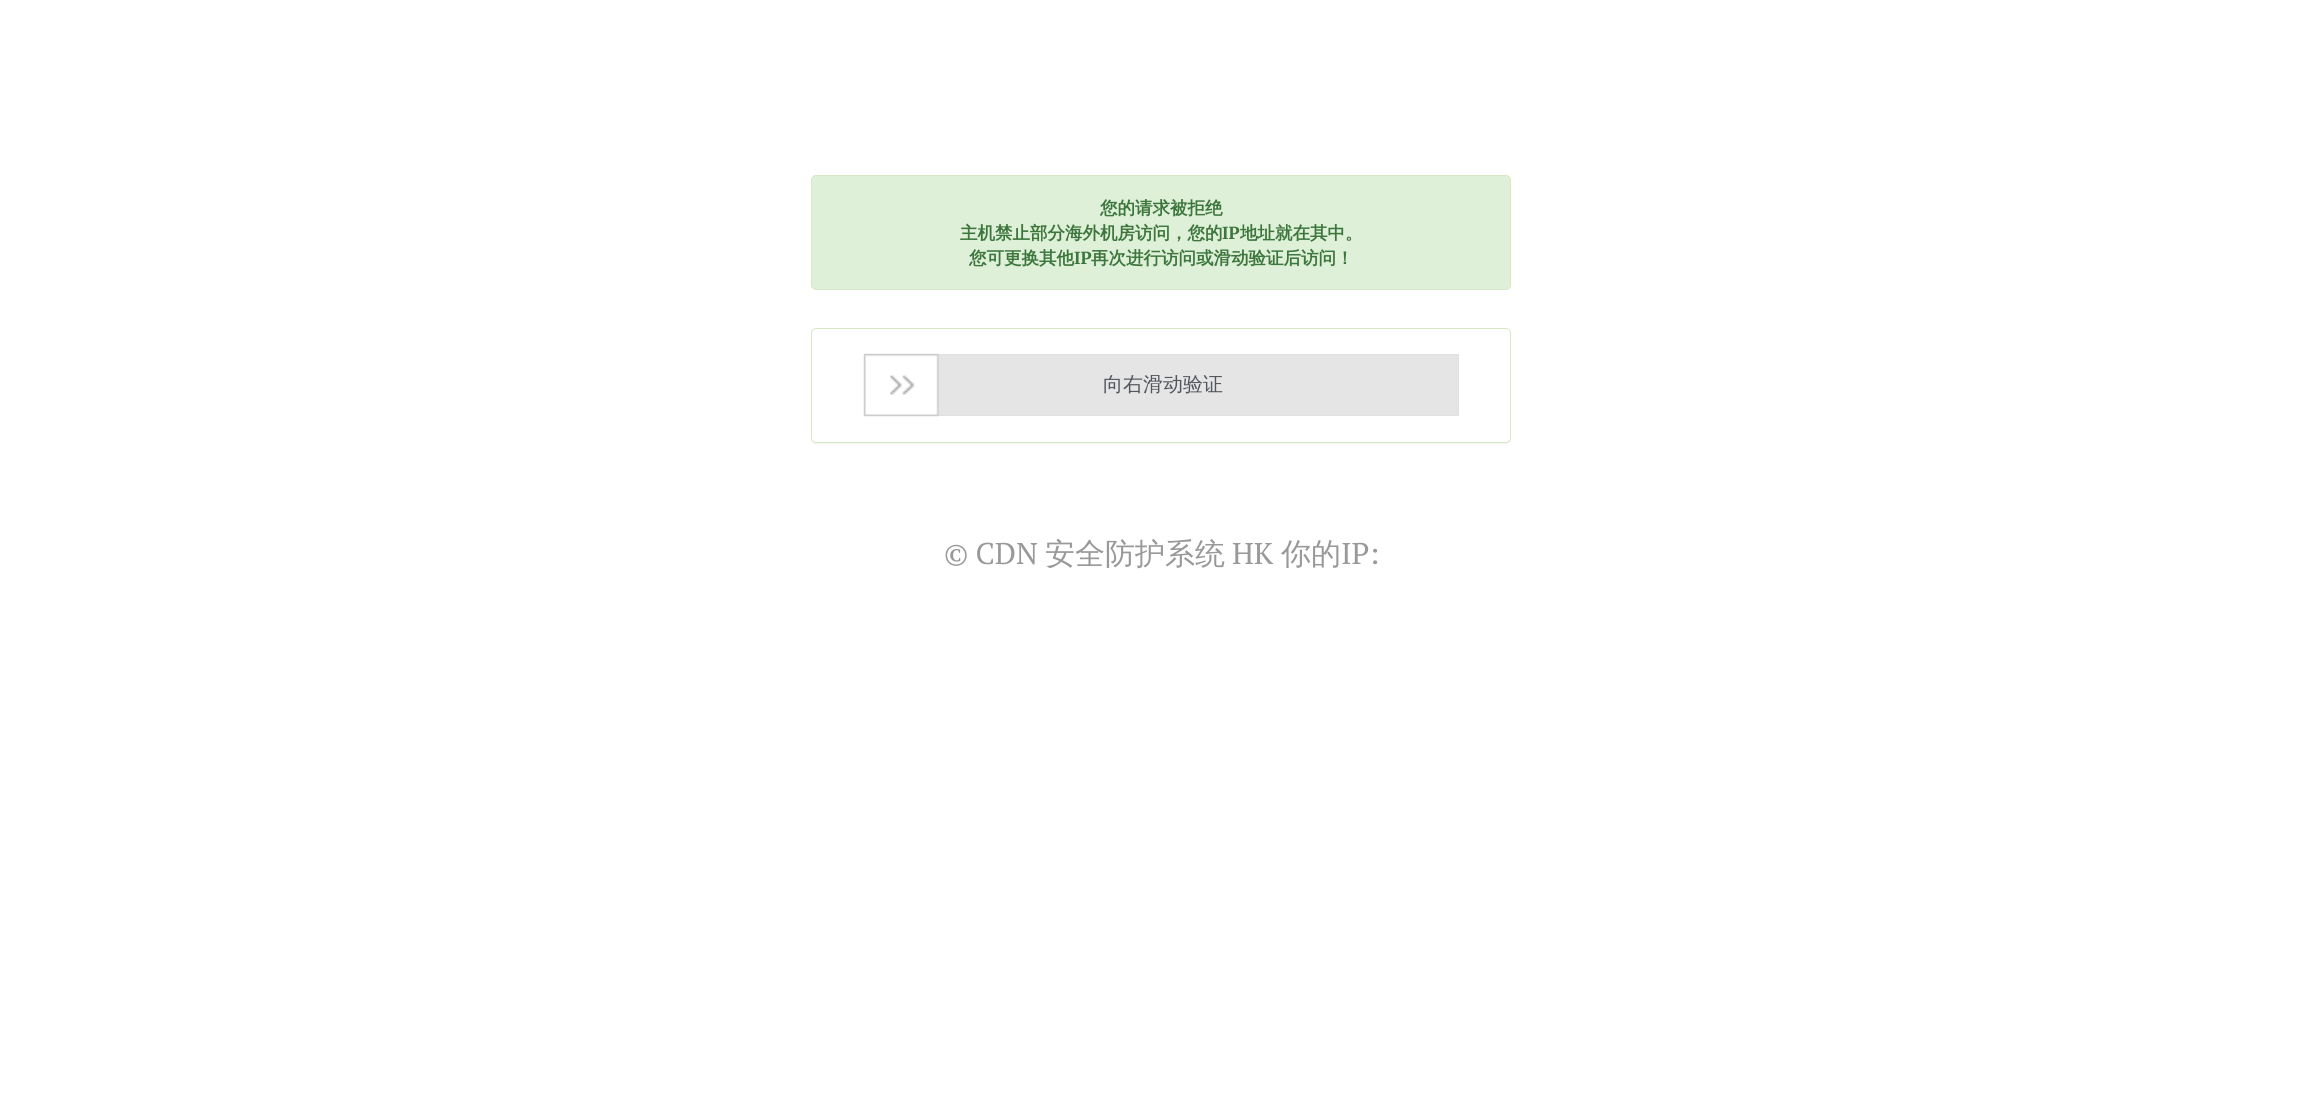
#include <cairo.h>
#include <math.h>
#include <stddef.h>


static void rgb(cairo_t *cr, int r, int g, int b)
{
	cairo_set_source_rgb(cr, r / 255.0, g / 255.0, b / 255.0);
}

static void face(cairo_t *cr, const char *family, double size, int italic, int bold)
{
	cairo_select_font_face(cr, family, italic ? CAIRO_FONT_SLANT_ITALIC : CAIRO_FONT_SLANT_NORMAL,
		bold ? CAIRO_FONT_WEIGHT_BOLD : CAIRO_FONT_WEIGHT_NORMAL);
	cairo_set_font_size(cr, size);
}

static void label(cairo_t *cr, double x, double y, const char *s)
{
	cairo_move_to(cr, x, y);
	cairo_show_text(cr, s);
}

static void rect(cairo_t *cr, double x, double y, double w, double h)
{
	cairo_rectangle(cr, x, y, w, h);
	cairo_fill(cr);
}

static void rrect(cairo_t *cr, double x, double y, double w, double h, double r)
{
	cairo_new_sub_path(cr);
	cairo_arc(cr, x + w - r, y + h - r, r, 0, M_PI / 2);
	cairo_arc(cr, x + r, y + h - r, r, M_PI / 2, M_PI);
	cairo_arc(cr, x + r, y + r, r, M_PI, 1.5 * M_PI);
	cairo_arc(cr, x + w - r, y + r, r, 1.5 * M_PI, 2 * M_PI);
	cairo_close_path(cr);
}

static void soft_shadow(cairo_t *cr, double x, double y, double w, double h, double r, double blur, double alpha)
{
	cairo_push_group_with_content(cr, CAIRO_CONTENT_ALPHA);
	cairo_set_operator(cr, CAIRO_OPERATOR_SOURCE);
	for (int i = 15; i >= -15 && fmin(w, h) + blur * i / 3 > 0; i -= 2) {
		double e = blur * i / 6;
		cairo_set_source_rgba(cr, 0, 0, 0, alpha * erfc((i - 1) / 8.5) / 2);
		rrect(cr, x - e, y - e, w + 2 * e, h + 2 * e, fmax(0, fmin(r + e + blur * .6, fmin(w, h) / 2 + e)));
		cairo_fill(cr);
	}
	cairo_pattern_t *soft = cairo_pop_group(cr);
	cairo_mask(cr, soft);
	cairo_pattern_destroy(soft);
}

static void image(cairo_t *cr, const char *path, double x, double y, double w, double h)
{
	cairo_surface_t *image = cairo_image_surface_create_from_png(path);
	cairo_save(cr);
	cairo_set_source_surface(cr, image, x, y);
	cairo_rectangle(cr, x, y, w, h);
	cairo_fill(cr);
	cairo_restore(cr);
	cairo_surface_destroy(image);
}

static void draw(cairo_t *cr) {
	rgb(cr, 255, 255, 255);
	cairo_paint(cr);
	rgb(cr, 223, 240, 216);
	rrect(cr, 811.5, 175.5, 699, 114, 4.5);
	cairo_fill_preserve(cr);
	rgb(cr, 214, 233, 198);
	cairo_set_line_width(cr, 1);
	cairo_stroke(cr);
	face(cr, "WenQuanYi Zen Hei", 17.5, 0, 1);
	rgb(cr, 60, 118, 61);
	label(cr, 1100, 214, "您的请求被拒绝");
	label(cr, 960, 239, "主机禁止部分海外机房访问，您的");
	face(cr, "PT Serif", 17.5, 0, 1);
	label(cr, 1222, 239, "IP");
	face(cr, "WenQuanYi Zen Hei", 17.5, 0, 1);
	label(cr, 1240, 239, "地址就在其中。");
	label(cr, 969, 264, "您可更换其他");
	face(cr, "PT Serif", 17.5, 0, 1);
	label(cr, 1074, 264, "IP");
	face(cr, "WenQuanYi Zen Hei", 17.5, 0, 1);
	label(cr, 1091, 264, "再次进行访问或滑动验证后访问！");
	rgb(cr, 0, 0, 0);
	soft_shadow(cr, 811, 329, 700, 115, 5, 0.5, 0.05);
	rgb(cr, 255, 255, 255);
	rrect(cr, 811.5, 328.5, 699, 114, 4.5);
	cairo_fill_preserve(cr);
	rgb(cr, 214, 233, 198);
	cairo_stroke(cr);
	rgb(cr, 229, 229, 229);
	rect(cr, 938, 355, 520, 60);
	cairo_rectangle(cr, 864.5, 354.5, 594, 61);
	rgb(cr, 224, 224, 224);
	cairo_stroke(cr);
	image(cr, "image0.png", 863, 353, 76, 64);
	face(cr, "WenQuanYi Zen Hei Medium", 20, 0, 0);
	rgb(cr, 81, 85, 92);
	label(cr, 1103, 391, "向右滑动验证");
	face(cr, "PT Serif", 30, 0, 0);
	rgb(cr, 153, 153, 153);
	label(cr, 944, 564, "© CDN");
	face(cr, "WenQuanYi Zen Hei Medium", 30, 0, 0);
	label(cr, 1045, 564, "安全防护系统");
	face(cr, "PT Serif", 30, 0, 0);
	label(cr, 1232, 564, "HK");
	face(cr, "WenQuanYi Zen Hei Medium", 30, 0, 0);
	label(cr, 1281, 564, "你的");
	face(cr, "PT Serif", 30, 0, 0);
	label(cr, 1341, 564, "IP:");
}

int main(void) {
	cairo_surface_t *surface = cairo_image_surface_create(CAIRO_FORMAT_RGB24, 2322, 1093);
	cairo_t *cr = cairo_create(surface);
	cairo_font_options_t *options = cairo_font_options_create();
	cairo_font_options_set_hint_metrics(options, CAIRO_HINT_METRICS_OFF);
	cairo_font_options_set_hint_style(options, CAIRO_HINT_STYLE_NONE);
	cairo_set_font_options(cr, options);
	cairo_set_miter_limit(cr, 4);
	draw(cr);
	cairo_surface_write_to_png(surface, "render.png");
	cairo_font_options_destroy(options);
	cairo_destroy(cr);
	cairo_surface_destroy(surface);
	return 0;
}
